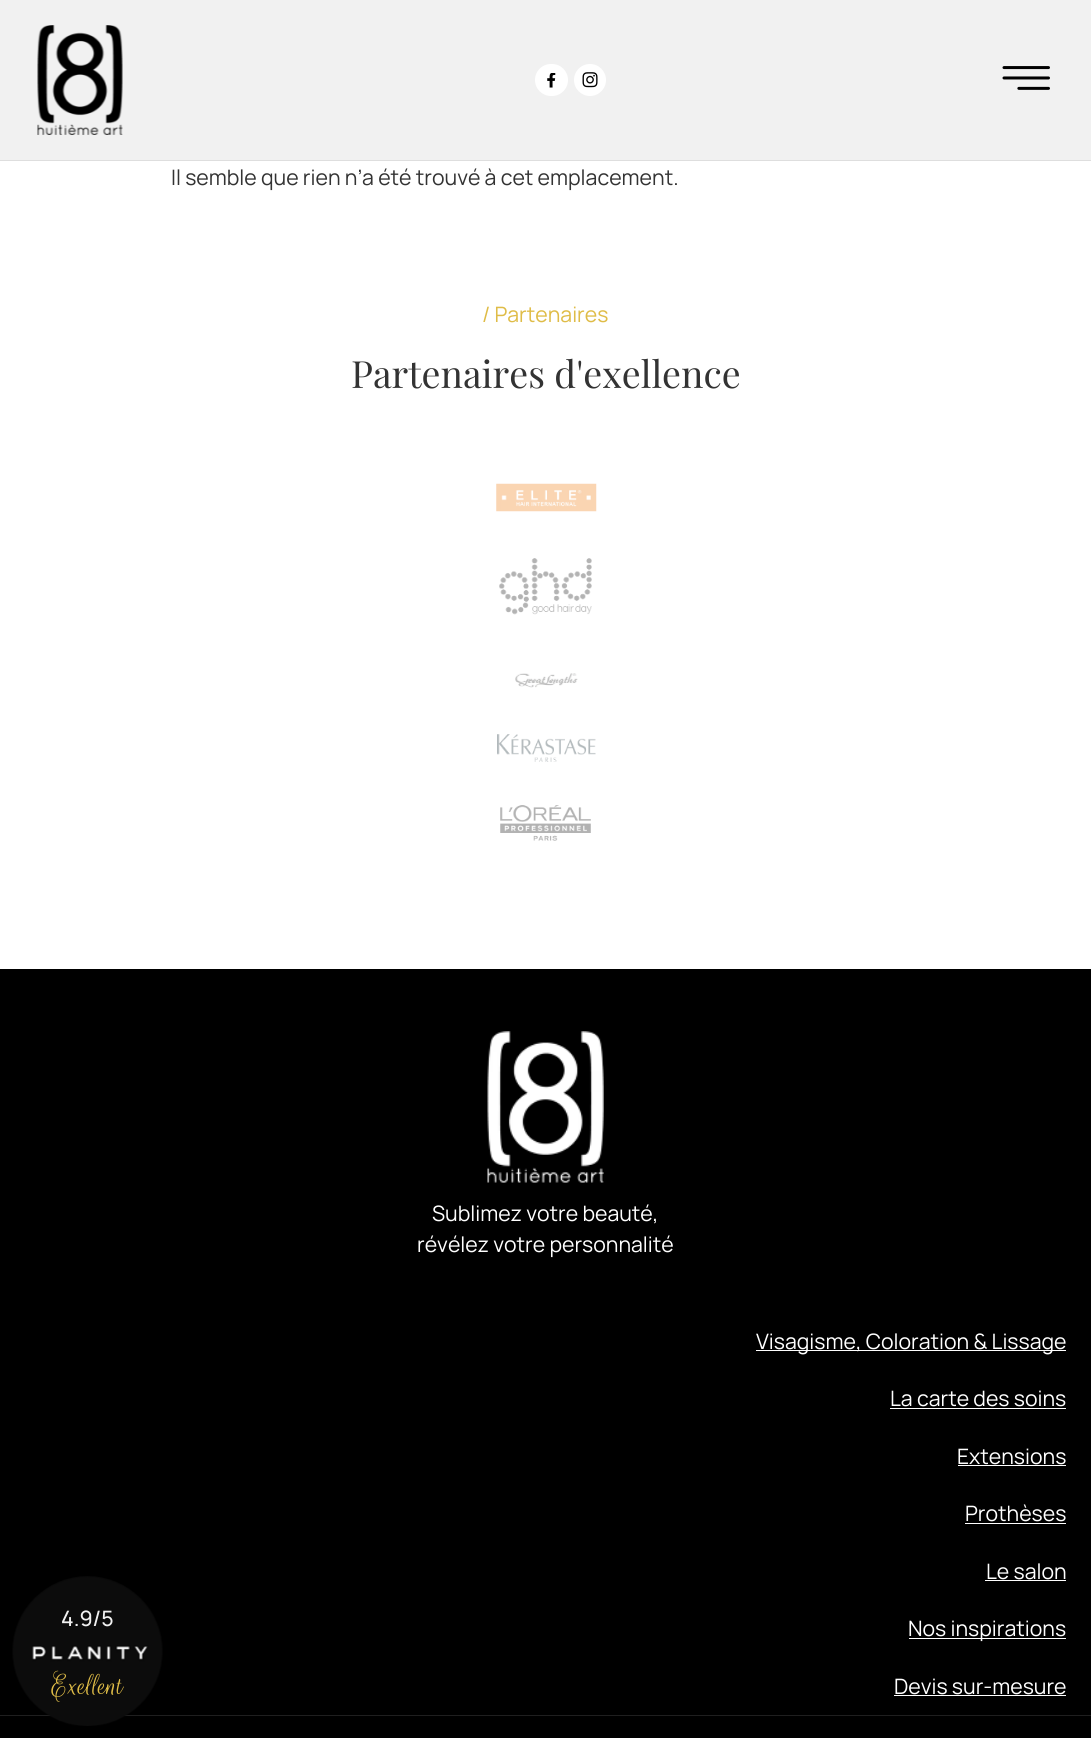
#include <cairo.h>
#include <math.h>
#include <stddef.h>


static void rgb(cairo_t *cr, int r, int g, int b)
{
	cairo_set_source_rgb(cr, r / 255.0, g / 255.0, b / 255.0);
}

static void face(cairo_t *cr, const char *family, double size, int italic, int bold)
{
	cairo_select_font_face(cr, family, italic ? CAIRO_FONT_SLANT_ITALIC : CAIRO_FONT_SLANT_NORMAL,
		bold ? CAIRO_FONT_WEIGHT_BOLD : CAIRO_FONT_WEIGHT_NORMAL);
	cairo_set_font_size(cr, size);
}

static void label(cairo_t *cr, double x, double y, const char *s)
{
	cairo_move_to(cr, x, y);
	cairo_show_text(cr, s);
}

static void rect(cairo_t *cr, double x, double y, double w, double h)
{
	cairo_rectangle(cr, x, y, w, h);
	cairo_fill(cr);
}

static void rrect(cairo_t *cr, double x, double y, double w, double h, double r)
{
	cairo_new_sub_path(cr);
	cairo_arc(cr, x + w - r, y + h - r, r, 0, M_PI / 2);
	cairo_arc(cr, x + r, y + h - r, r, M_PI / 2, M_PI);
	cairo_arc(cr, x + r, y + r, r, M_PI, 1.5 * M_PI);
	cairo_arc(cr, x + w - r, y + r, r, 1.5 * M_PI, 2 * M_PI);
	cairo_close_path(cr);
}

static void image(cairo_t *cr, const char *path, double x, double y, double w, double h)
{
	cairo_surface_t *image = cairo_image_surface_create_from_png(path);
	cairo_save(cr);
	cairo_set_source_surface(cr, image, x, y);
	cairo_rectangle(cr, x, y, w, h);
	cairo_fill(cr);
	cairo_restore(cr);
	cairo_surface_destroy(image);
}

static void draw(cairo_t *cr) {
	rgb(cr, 255, 255, 255);
	cairo_paint(cr);
	rgb(cr, 241, 241, 241);
	rect(cr, 0, 0, 1091, 160);
	rgb(cr, 222, 222, 222);
	rect(cr, 0, 160, 1091, 1);
	image(cr, "image0.png", 37, 25, 86, 110);
	rgb(cr, 255, 255, 255);
	rrect(cr, 535, 64, 33, 32, 16);
	cairo_fill(cr);
	image(cr, "image1.png", 547, 73, 9, 15);
	cairo_arc(cr, 590, 80, 16, 0, 2 * M_PI);
	cairo_fill(cr);
	image(cr, "image2.png", 582, 72, 16, 16);
	image(cr, "image3.png", 1002, 66, 48, 24);
	face(cr, "Manrope", 21.25, 0, 0);
	rgb(cr, 51, 51, 51);
	label(cr, 171, 185, "Il semble que rien n’a été trouvé à cet emplacement.");
	rgb(cr, 223, 188, 71);
	label(cr, 482, 322, "/ Partenaires");
	face(cr, "Playfair Display", 37.5, 0, 0);
	rgb(cr, 51, 51, 51);
	label(cr, 351, 388, "Partenaires d'exellence");
	image(cr, "image4.png", 496, 483, 101, 29);
	image(cr, "image5.png", 499, 558, 93, 57);
	image(cr, "image6.png", 515, 673, 63, 15);
	image(cr, "image7.png", 497, 734, 99, 28);
	image(cr, "image8.png", 500, 805, 91, 36);
	rgb(cr, 0, 0, 0);
	rect(cr, 0, 969, 1091, 769);
	rgb(cr, 31, 31, 31);
	rect(cr, 0, 1715, 1091, 1);
	image(cr, "image9.png", 12, 1576, 151, 150);
	face(cr, "Manrope Medium", 21.25, 0, 0);
	rgb(cr, 241, 241, 241);
	label(cr, 61, 1626, "4.9/5");
	face(cr, "Rouge Script", 31, 0, 0);
	rgb(cr, 223, 188, 71);
	label(cr, 51, 1694, "Exellent");
	image(cr, "image10.png", 487, 1031, 117, 152);
	face(cr, "Manrope", 21.25, 0, 0);
	rgb(cr, 255, 255, 255);
	label(cr, 432, 1221, "Sublimez votre beauté,");
	label(cr, 417, 1252, "révélez votre personnalité");
	rect(cr, 756, 1350, 310, 1);
	label(cr, 756, 1349, "Visagisme, Coloration & Lissage");
	label(cr, 890, 1406, "La carte des soins");
	rect(cr, 890, 1408, 176, 1);
	label(cr, 957, 1464, "Extensions");
	rect(cr, 958, 1465, 108, 1);
	label(cr, 965, 1521, "Prothèses");
	rect(cr, 965, 1523, 101, 1);
	label(cr, 986, 1579, "Le salon");
	rect(cr, 985, 1580, 81, 1);
	rect(cr, 909, 1638, 157, 1);
	label(cr, 908, 1636, "Nos inspirations");
	label(cr, 894, 1694, "Devis sur-mesure");
	rect(cr, 894, 1695, 172, 1);
}

int main(void) {
	cairo_surface_t *surface = cairo_image_surface_create(CAIRO_FORMAT_RGB24, 1091, 1738);
	cairo_t *cr = cairo_create(surface);
	cairo_font_options_t *options = cairo_font_options_create();
	cairo_font_options_set_hint_metrics(options, CAIRO_HINT_METRICS_OFF);
	cairo_font_options_set_hint_style(options, CAIRO_HINT_STYLE_NONE);
	cairo_set_font_options(cr, options);
	cairo_set_miter_limit(cr, 4);
	draw(cr);
	cairo_surface_write_to_png(surface, "render.png");
	cairo_font_options_destroy(options);
	cairo_destroy(cr);
	cairo_surface_destroy(surface);
	return 0;
}
